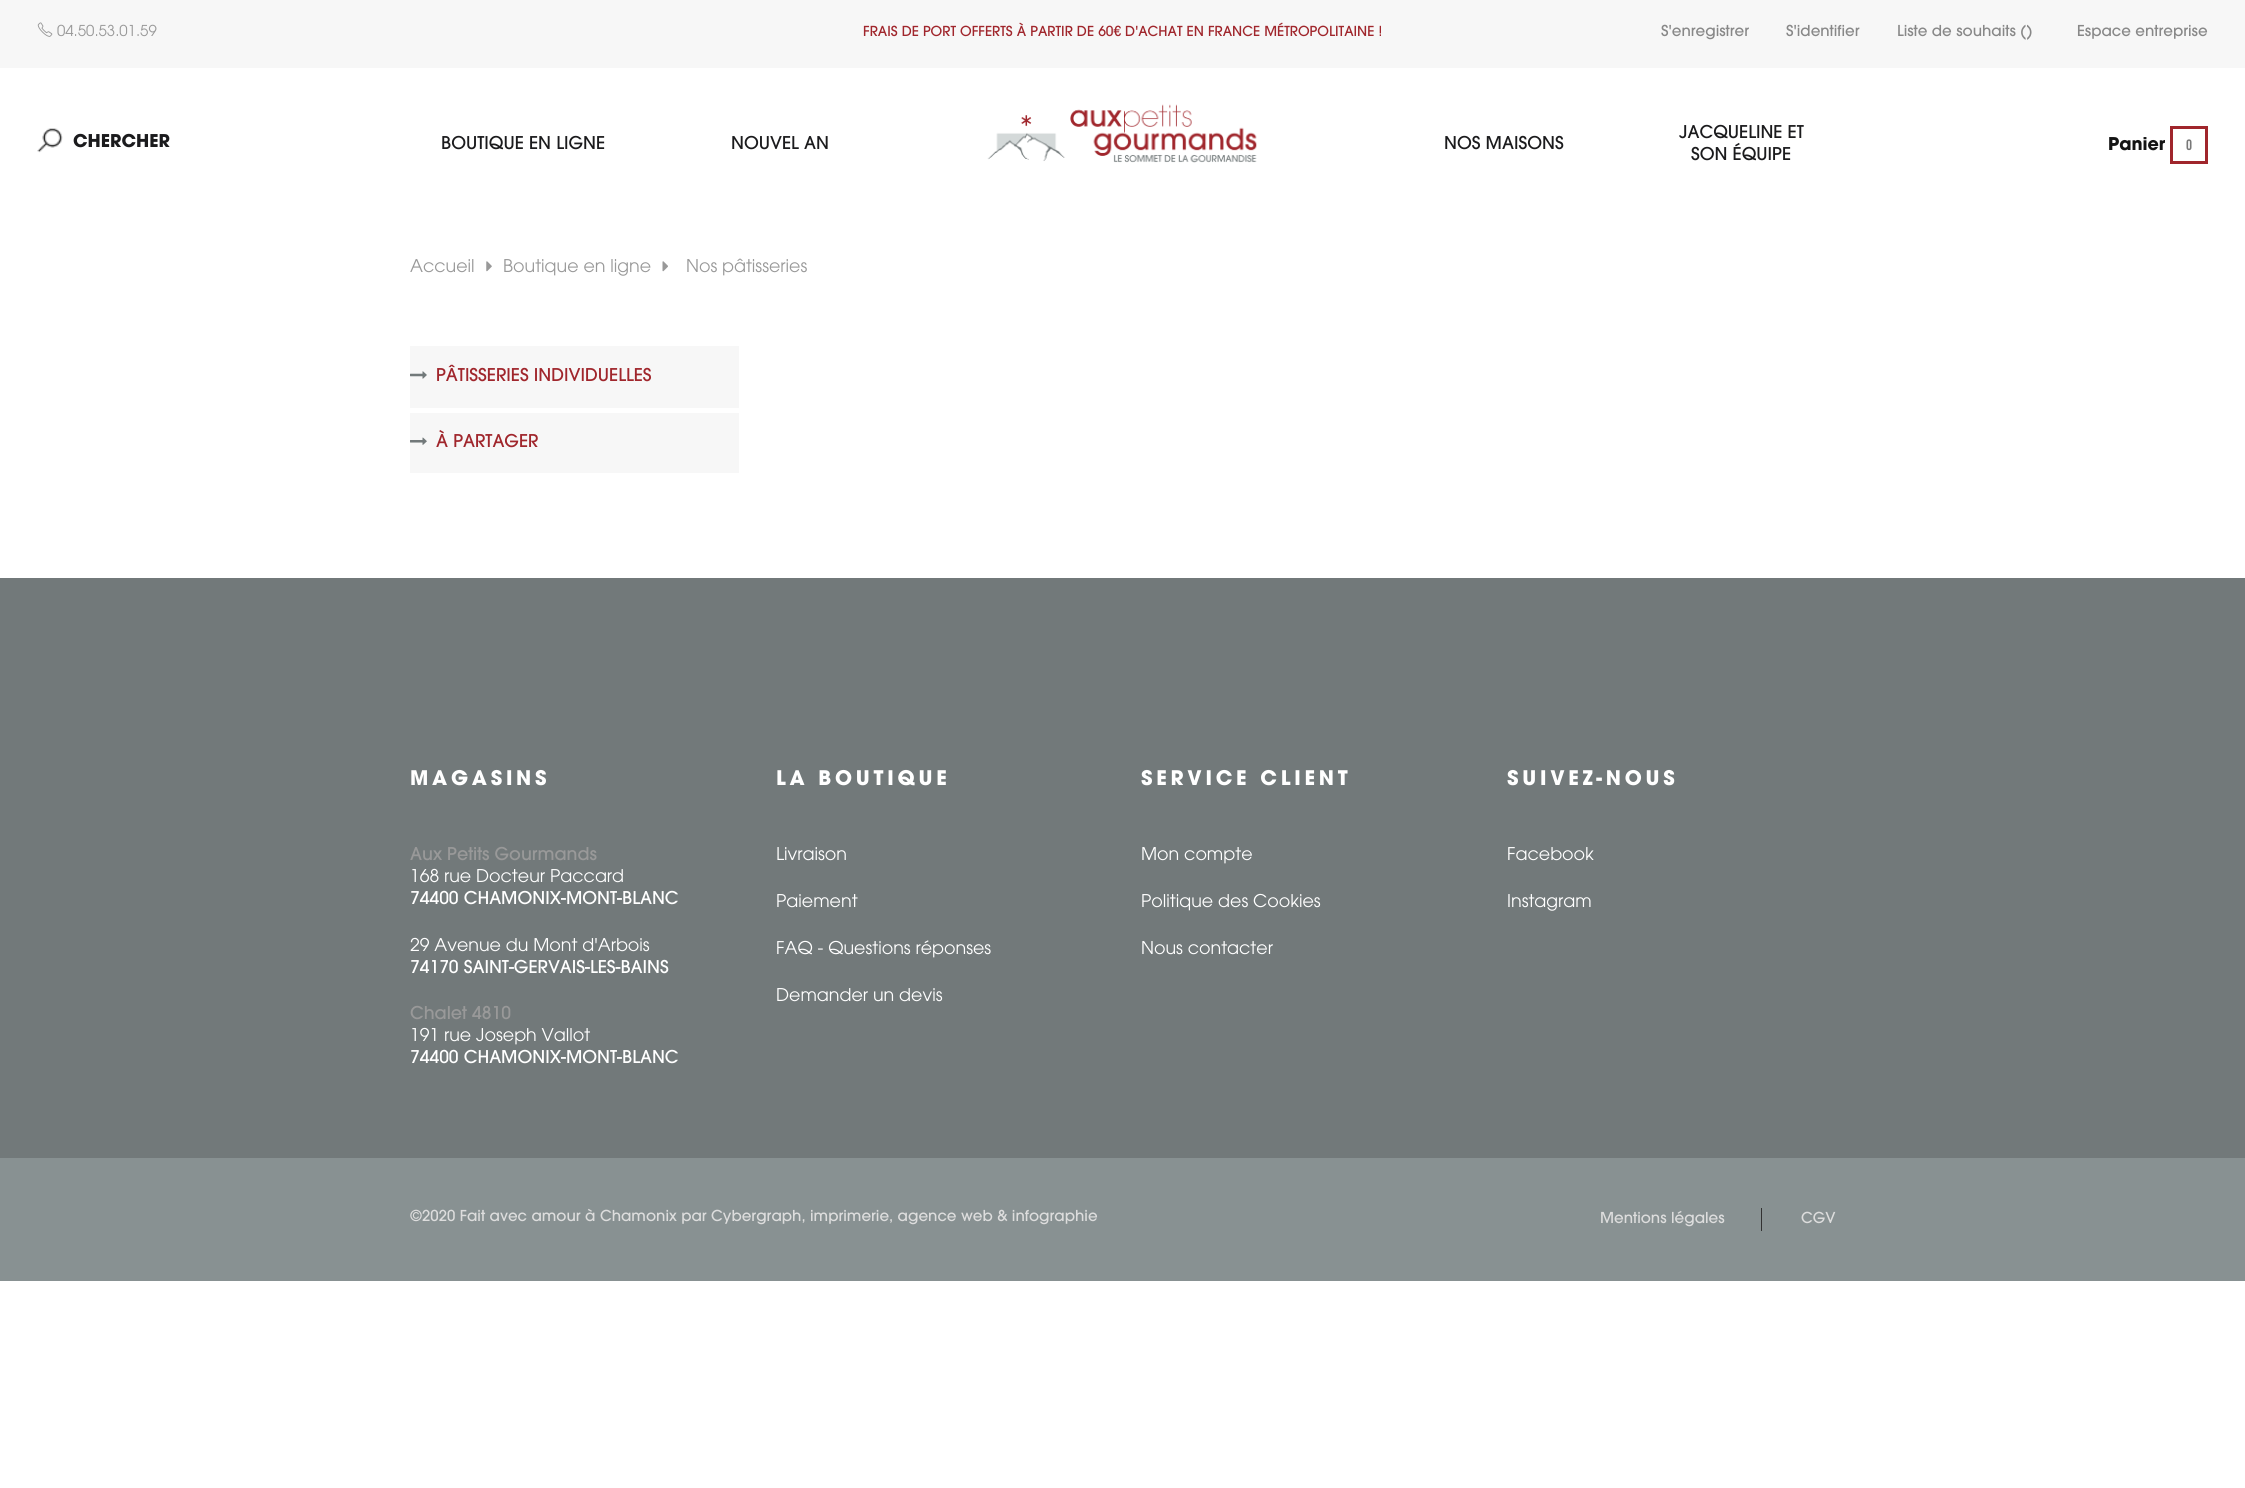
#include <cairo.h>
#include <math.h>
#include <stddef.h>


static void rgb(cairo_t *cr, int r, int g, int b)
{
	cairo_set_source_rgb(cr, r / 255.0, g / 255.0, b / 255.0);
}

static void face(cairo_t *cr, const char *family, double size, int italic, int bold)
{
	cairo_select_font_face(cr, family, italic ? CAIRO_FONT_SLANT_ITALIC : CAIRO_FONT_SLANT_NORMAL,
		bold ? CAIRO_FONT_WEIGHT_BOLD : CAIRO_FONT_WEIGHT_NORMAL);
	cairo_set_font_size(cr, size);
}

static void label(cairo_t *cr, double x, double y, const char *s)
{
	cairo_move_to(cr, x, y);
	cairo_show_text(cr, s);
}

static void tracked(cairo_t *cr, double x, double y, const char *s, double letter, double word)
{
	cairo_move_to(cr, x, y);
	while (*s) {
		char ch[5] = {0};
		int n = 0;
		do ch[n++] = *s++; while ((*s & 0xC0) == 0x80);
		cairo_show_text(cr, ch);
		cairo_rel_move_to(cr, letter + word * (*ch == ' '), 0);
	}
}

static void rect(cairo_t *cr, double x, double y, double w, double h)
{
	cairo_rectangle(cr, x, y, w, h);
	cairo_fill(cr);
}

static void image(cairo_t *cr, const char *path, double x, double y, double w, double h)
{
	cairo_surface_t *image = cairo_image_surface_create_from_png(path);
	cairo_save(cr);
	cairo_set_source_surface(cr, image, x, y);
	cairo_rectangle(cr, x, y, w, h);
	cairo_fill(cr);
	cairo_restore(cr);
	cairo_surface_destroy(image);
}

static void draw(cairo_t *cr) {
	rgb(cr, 255, 255, 255);
	cairo_paint(cr);
	rgb(cr, 247, 247, 247);
	rect(cr, 0, 0, 2245, 68);
	image(cr, "image0.png", 37, 22, 16, 15);
	face(cr, "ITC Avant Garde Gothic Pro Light", 15, 0, 0);
	rgb(cr, 153, 153, 153);
	label(cr, 57, 36, "04.50.53.01.59");
	face(cr, "ITC Avant Garde Gothic Pro Medium", 13.75, 0, 0);
	rgb(cr, 160, 38, 44);
	label(cr, 863, 36, "FRAIS DE PORT OFFERTS À PARTIR DE 60€ D'ACHAT EN FRANCE MÉTROPOLITAINE !");
	face(cr, "ITC Avant Garde Gothic Pro Medium", 15, 0, 0);
	rgb(cr, 136, 136, 136);
	label(cr, 1661, 36, "S'enregistrer");
	label(cr, 1786, 36, "S'identifier");
	label(cr, 1897, 36, "Liste de souhaits ()");
	label(cr, 2077, 36, "Espace entreprise");
	image(cr, "image1.png", 37, 128, 26, 25);
	face(cr, "ITC Avant Garde Gothic Pro", 17.5, 0, 1);
	rgb(cr, 27, 27, 29);
	label(cr, 73, 147, "CHERCHER");
	image(cr, "image2.png", 987, 104, 270, 59);
	face(cr, "ITC Avant Garde Gothic Pro Medium", 17.5, 0, 0);
	label(cr, 441, 149, "BOUTIQUE EN LIGNE");
	label(cr, 731, 149, "NOUVEL AN");
	label(cr, 1444, 149, "NOS MAISONS");
	label(cr, 1679, 138, "JACQUELINE ET");
	label(cr, 1691, 160, "SON ÉQUIPE");
	face(cr, "ITC Avant Garde Gothic Pro", 17.5, 0, 1);
	rgb(cr, 20, 20, 20);
	label(cr, 2108, 150, "Panier");
	cairo_rectangle(cr, 2171.5, 127.5, 35, 35);
	rgb(cr, 160, 38, 44);
	cairo_set_line_width(cr, 3);
	cairo_stroke(cr);
	face(cr, "Bebas Neue", 15, 0, 0);
	rgb(cr, 120, 120, 120);
	label(cr, 2186, 150, "0");
	face(cr, "ITC Avant Garde Gothic Pro Light", 17.5, 0, 0);
	rgb(cr, 153, 153, 153);
	label(cr, 410, 272, "Accueil");
	image(cr, "image3.png", 486, 261, 6, 11);
	label(cr, 503, 272, "Boutique en ligne");
	image(cr, "image4.png", 662, 261, 6, 11);
	label(cr, 686, 272, "Nos pâtisseries");
	rgb(cr, 247, 247, 247);
	rect(cr, 410, 346, 329, 62);
	image(cr, "image5.png", 410, 371, 17, 8);
	face(cr, "ITC Avant Garde Gothic Pro Medium", 17.5, 0, 0);
	rgb(cr, 160, 38, 44);
	label(cr, 436, 381, "PÂTISSERIES INDIVIDUELLES");
	rgb(cr, 247, 247, 247);
	rect(cr, 410, 413, 329, 60);
	image(cr, "image6.png", 410, 437, 17, 8);
	rgb(cr, 160, 38, 44);
	label(cr, 436, 447, "À PARTAGER");
	rgb(cr, 114, 121, 122);
	rect(cr, 0, 578, 2245, 580);
	face(cr, "ITC Avant Garde Gothic Pro", 20, 0, 1);
	rgb(cr, 255, 255, 255);
	tracked(cr, 410, 785, "MAGASINS", 3.75, 0);
	face(cr, "ITC Avant Garde Gothic Pro Medium", 17.5, 0, 0);
	rgb(cr, 153, 153, 153);
	label(cr, 410, 860, "Aux Petits Gourmands");
	face(cr, "ITC Avant Garde Gothic Pro Light", 17.5, 0, 0);
	rgb(cr, 255, 255, 255);
	label(cr, 410, 882, "168 rue Docteur Paccard");
	face(cr, "ITC Avant Garde Gothic Pro Medium", 17.5, 0, 0);
	label(cr, 410, 904, "74400 CHAMONIX-MONT-BLANC");
	face(cr, "ITC Avant Garde Gothic Pro Light", 17.5, 0, 0);
	label(cr, 410, 951, "29 Avenue du Mont d'Arbois");
	face(cr, "ITC Avant Garde Gothic Pro Medium", 17.5, 0, 0);
	label(cr, 410, 973, "74170 SAINT-GERVAIS-LES-BAINS");
	rgb(cr, 153, 153, 153);
	label(cr, 410, 1019, "Chalet 4810");
	face(cr, "ITC Avant Garde Gothic Pro Light", 17.5, 0, 0);
	rgb(cr, 255, 255, 255);
	label(cr, 410, 1041, "191 rue Joseph Vallot");
	face(cr, "ITC Avant Garde Gothic Pro Medium", 17.5, 0, 0);
	label(cr, 410, 1063, "74400 CHAMONIX-MONT-BLANC");
	face(cr, "ITC Avant Garde Gothic Pro", 20, 0, 1);
	tracked(cr, 776, 785, "LA BOUTIQUE", 3.75, 0);
	face(cr, "ITC Avant Garde Gothic Pro Light", 17.5, 0, 0);
	label(cr, 776, 860, "Livraison");
	label(cr, 776, 907, "Paiement");
	label(cr, 776, 954, "FAQ - Questions réponses");
	label(cr, 776, 1001, "Demander un devis");
	face(cr, "ITC Avant Garde Gothic Pro", 20, 0, 1);
	tracked(cr, 1141, 785, "SERVICE CLIENT", 3.75, 0);
	face(cr, "ITC Avant Garde Gothic Pro Light", 17.5, 0, 0);
	label(cr, 1141, 860, "Mon compte");
	label(cr, 1141, 907, "Politique des Cookies");
	label(cr, 1141, 954, "Nous contacter");
	face(cr, "ITC Avant Garde Gothic Pro", 20, 0, 1);
	tracked(cr, 1507, 785, "SUIVEZ-NOUS", 3.75, 0);
	face(cr, "ITC Avant Garde Gothic Pro Light", 17.5, 0, 0);
	label(cr, 1507, 860, "Facebook");
	label(cr, 1507, 907, "Instagram");
	rgb(cr, 136, 145, 146);
	rect(cr, 0, 1158, 2245, 123);
	face(cr, "ITC Avant Garde Gothic Pro Medium", 15, 0, 0);
	rgb(cr, 221, 221, 221);
	label(cr, 410, 1221, "©2020 Fait avec amour à Chamonix par Cybergraph, imprimerie, agence web & infographie");
	rgb(cr, 50, 50, 50);
	rect(cr, 1761, 1208, 1, 23);
	rgb(cr, 221, 221, 221);
	label(cr, 1600, 1223, "Mentions légales");
	label(cr, 1801, 1223, "CGV");
}

int main(void) {
	cairo_surface_t *surface = cairo_image_surface_create(CAIRO_FORMAT_RGB24, 2245, 1488);
	cairo_t *cr = cairo_create(surface);
	cairo_font_options_t *options = cairo_font_options_create();
	cairo_font_options_set_hint_metrics(options, CAIRO_HINT_METRICS_OFF);
	cairo_font_options_set_hint_style(options, CAIRO_HINT_STYLE_NONE);
	cairo_set_font_options(cr, options);
	cairo_set_miter_limit(cr, 4);
	draw(cr);
	cairo_surface_write_to_png(surface, "render.png");
	cairo_font_options_destroy(options);
	cairo_destroy(cr);
	cairo_surface_destroy(surface);
	return 0;
}
